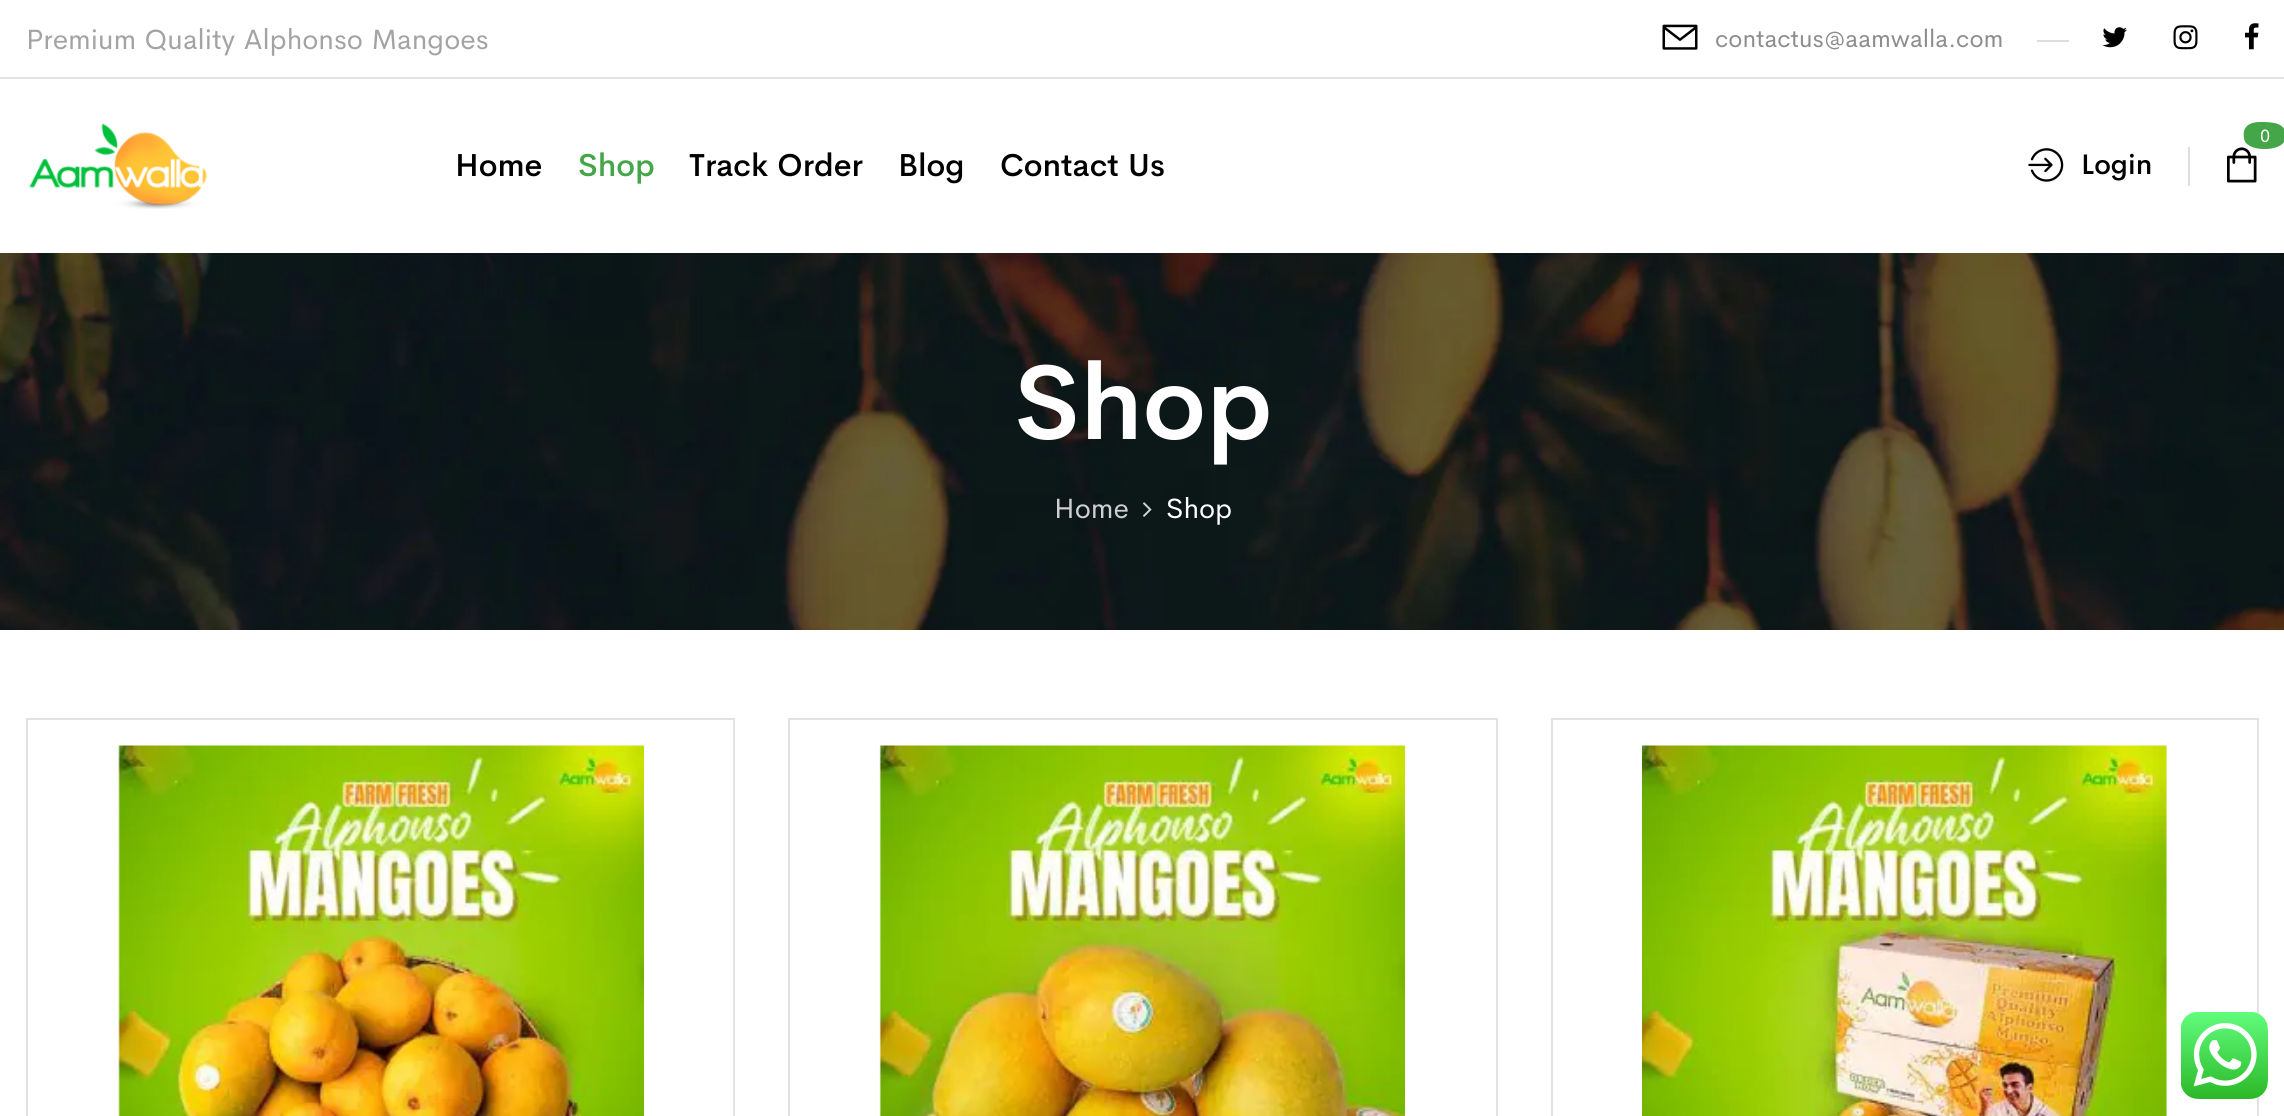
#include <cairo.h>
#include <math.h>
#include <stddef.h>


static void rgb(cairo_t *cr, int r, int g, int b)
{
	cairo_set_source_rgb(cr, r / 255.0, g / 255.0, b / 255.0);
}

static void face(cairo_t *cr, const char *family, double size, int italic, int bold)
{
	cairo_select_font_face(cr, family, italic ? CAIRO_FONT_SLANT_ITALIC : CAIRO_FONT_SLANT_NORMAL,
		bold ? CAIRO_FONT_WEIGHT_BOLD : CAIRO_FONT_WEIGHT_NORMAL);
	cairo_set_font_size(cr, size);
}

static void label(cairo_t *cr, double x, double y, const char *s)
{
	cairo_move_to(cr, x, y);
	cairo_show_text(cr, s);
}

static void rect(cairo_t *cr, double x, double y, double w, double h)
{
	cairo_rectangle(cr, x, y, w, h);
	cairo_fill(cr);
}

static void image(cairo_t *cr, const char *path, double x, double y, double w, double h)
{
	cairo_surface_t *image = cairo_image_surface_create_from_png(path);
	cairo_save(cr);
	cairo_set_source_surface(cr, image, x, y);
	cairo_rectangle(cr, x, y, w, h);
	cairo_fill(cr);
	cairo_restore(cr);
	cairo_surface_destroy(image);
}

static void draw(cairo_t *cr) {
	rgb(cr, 255, 255, 255);
	cairo_paint(cr);
	rgb(cr, 226, 226, 226);
	rect(cr, 0, 77, 2284, 2);
	face(cr, "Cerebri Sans", 28, 0, 0);
	rgb(cr, 163, 163, 163);
	label(cr, 26, 49, "Premium Quality Alphonso Mangoes");
	image(cr, "image0.png", 1662, 24, 36, 26);
	face(cr, "Cerebri Sans", 24.5, 0, 0);
	rgb(cr, 141, 141, 141);
	label(cr, 1715, 47, "contactus@aamwalla.com");
	rgb(cr, 222, 222, 222);
	rect(cr, 2037, 40, 32, 2);
	image(cr, "image1.png", 2102, 27, 25, 21);
	image(cr, "image2.png", 2173, 25, 25, 25);
	image(cr, "image3.png", 2245, 23, 14, 27);
	image(cr, "image4.png", 29, 123, 178, 86);
	face(cr, "Cerebri Sans Medium", 31.5, 0, 0);
	rgb(cr, 0, 0, 0);
	label(cr, 455, 176, "Home");
	rgb(cr, 68, 166, 73);
	label(cr, 578, 176, "Shop");
	rgb(cr, 0, 0, 0);
	label(cr, 689, 176, "Track Order");
	label(cr, 898, 176, "Blog");
	label(cr, 1000, 176, "Contact Us");
	image(cr, "image5.png", 2227, 147, 30, 36);
	rgb(cr, 68, 166, 73);
	cairo_new_path(cr);
	cairo_move_to(cr, 2260, 122);
	cairo_curve_to(cr, 2266, 122, 2272, 122, 2278, 124);
	cairo_curve_to(cr, 2283, 126, 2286, 130, 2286, 135);
	cairo_curve_to(cr, 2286, 137, 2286, 140, 2284, 142);
	cairo_curve_to(cr, 2278, 152, 2245, 152, 2244, 138);
	cairo_curve_to(cr, 2242, 127, 2249, 122, 2260, 122);
	cairo_close_path(cr);
	cairo_fill(cr);
	face(cr, "Cerebri Sans", 18, 0, 0);
	rgb(cr, 255, 255, 255);
	label(cr, 2260, 142, "0");
	rgb(cr, 222, 222, 222);
	rect(cr, 2188, 147, 2, 39);
	image(cr, "image6.png", 2028, 148, 36, 34);
	face(cr, "Cerebri Sans Medium", 28, 0, 0);
	rgb(cr, 0, 0, 0);
	label(cr, 2081, 174, "Login");
	image(cr, "image7.png", 0, 253, 2284, 377);
	face(cr, "Cerebri Sans SemiBold", 105, 0, 0);
	rgb(cr, 255, 255, 255);
	label(cr, 1014, 439, "Shop");
	face(cr, "Cerebri Sans", 28, 0, 0);
	rgb(cr, 206, 208, 209);
	label(cr, 1054, 518, "Home");
	image(cr, "image8.png", 1143, 502, 9, 15);
	rgb(cr, 255, 255, 255);
	label(cr, 1166, 518, "Shop");
	cairo_rectangle(cr, 27, 719, 707, 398);
	rgb(cr, 226, 226, 226);
	cairo_stroke(cr);
	image(cr, "image9.png", 118, 745, 526, 371);
	cairo_rectangle(cr, 789, 719, 708, 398);
	cairo_stroke(cr);
	image(cr, "image10.png", 879, 745, 526, 371);
	cairo_rectangle(cr, 1552, 719, 706, 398);
	cairo_stroke(cr);
	image(cr, "image11.png", 1642, 745, 525, 371);
	image(cr, "image12.png", 2181, 1012, 87, 87);
}

int main(void) {
	cairo_surface_t *surface = cairo_image_surface_create(CAIRO_FORMAT_RGB24, 2284, 1116);
	cairo_t *cr = cairo_create(surface);
	cairo_font_options_t *options = cairo_font_options_create();
	cairo_font_options_set_hint_metrics(options, CAIRO_HINT_METRICS_OFF);
	cairo_font_options_set_hint_style(options, CAIRO_HINT_STYLE_NONE);
	cairo_set_font_options(cr, options);
	cairo_set_miter_limit(cr, 4);
	draw(cr);
	cairo_surface_write_to_png(surface, "render.png");
	cairo_font_options_destroy(options);
	cairo_destroy(cr);
	cairo_surface_destroy(surface);
	return 0;
}
